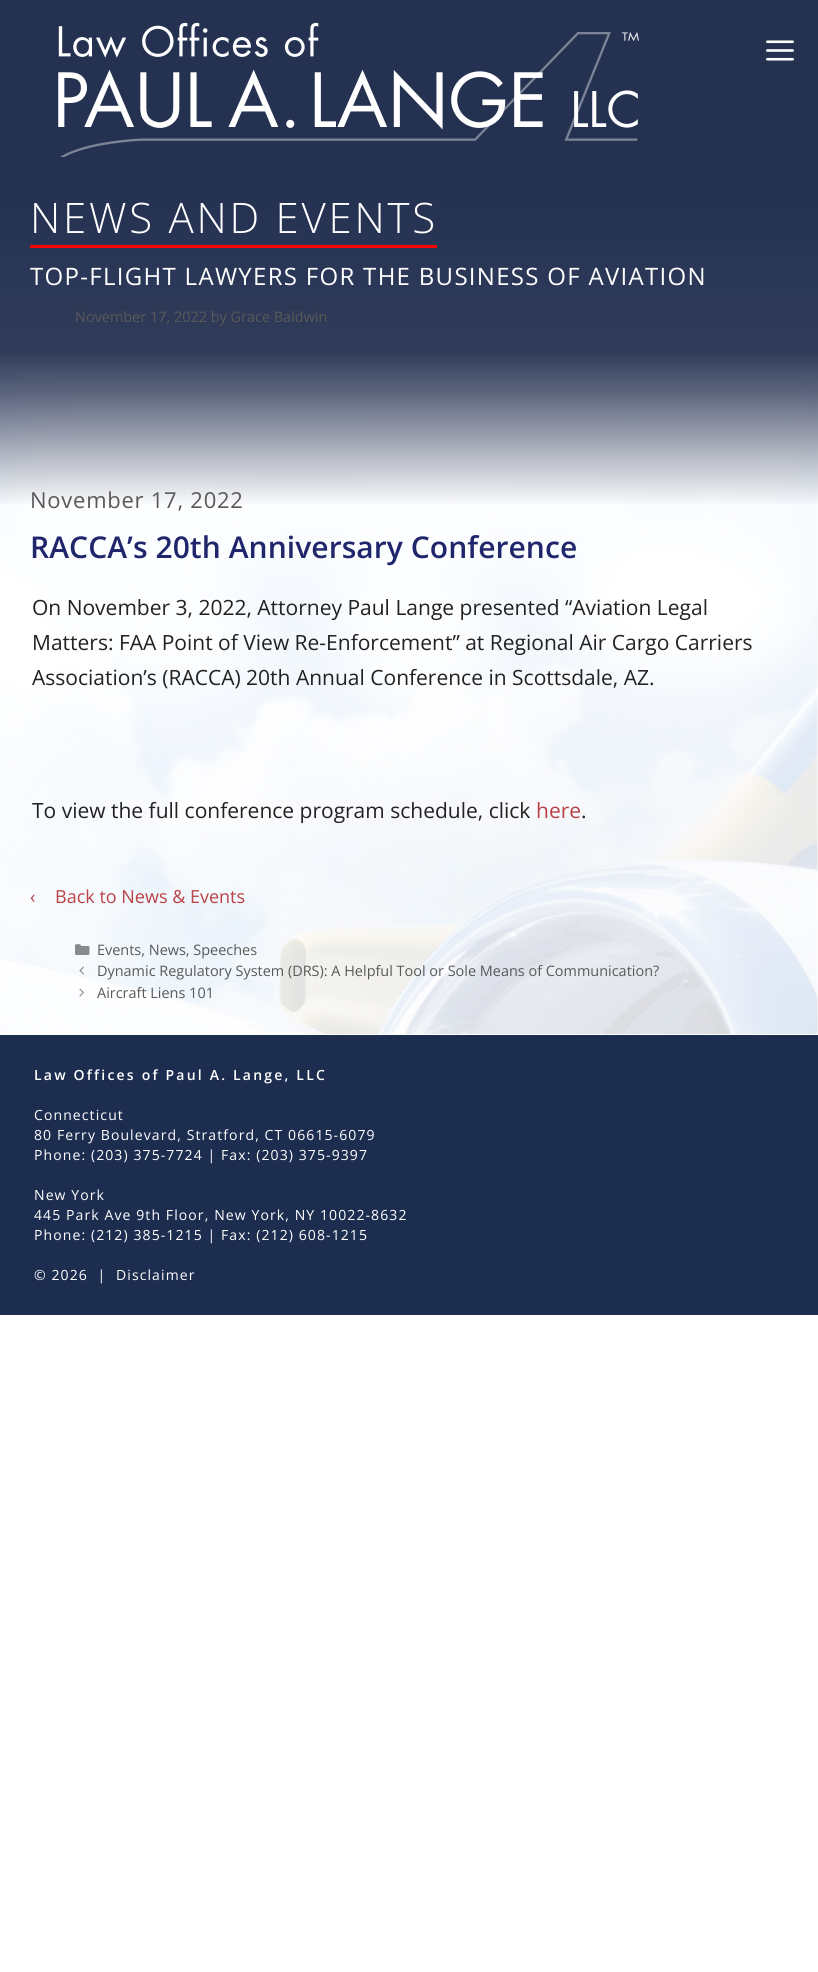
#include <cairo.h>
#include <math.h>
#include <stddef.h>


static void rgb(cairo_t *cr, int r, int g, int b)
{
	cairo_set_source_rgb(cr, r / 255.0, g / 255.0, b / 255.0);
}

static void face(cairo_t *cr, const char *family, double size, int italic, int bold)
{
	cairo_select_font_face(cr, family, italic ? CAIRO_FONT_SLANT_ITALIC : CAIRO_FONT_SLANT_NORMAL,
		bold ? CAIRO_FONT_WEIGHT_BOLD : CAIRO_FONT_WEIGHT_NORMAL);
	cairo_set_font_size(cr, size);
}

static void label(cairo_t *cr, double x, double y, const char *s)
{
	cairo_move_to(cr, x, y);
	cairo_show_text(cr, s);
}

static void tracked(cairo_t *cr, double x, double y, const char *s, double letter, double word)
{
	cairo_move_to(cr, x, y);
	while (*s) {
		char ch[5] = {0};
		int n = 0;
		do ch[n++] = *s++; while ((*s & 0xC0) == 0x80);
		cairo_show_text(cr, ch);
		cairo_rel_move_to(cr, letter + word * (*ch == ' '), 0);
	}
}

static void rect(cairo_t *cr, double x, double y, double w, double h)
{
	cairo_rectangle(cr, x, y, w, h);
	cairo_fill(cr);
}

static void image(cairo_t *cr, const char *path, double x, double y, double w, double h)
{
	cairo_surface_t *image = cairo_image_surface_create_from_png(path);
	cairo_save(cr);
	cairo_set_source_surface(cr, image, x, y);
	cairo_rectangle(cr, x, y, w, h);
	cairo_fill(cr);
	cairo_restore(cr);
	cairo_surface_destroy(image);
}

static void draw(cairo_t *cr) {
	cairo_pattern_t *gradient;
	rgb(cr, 255, 255, 255);
	cairo_paint(cr);
	image(cr, "image5.png", 0, 373, 818, 661);
	gradient = cairo_pattern_create_linear(409, 0, 409, 1035);
	cairo_pattern_add_color_stop_rgba(gradient, 0, 0.09, 0.145, 0.275, 1);
	cairo_pattern_add_color_stop_rgba(gradient, 0.34, 0.098, 0.149, 0.282, 0.9);
	cairo_pattern_add_color_stop_rgba(gradient, 0.38, 0.098, 0.145, 0.275, 0.7);
	cairo_pattern_add_color_stop_rgba(gradient, 0.49, 0.098, 0.145, 0.275, 0);
	cairo_pattern_add_color_stop_rgba(gradient, 0.49, 1, 1, 1, 0);
	cairo_set_source(cr, gradient);
	cairo_pattern_destroy(gradient);
	rect(cr, 0, 170, 818, 334);
	gradient = cairo_pattern_create_linear(409, 0, 409, 179);
	cairo_pattern_add_color_stop_rgba(gradient, 0, 0.141, 0.192, 0.314, 1);
	cairo_pattern_add_color_stop_rgba(gradient, 0.95, 0.141, 0.192, 0.314, 1);
	cairo_pattern_add_color_stop_rgba(gradient, 1, 0.141, 0.192, 0.314, 0);
	cairo_set_source(cr, gradient);
	cairo_pattern_destroy(gradient);
	rect(cr, 0, 0, 818, 170);
	image(cr, "image0.png", 58, 22, 581, 135);
	image(cr, "image1.png", 766, 40, 28, 21);
	rgb(cr, 255, 0, 0);
	rect(cr, 30, 245, 407, 3);
	face(cr, "Open Sans Light", 42, 0, 0);
	rgb(cr, 255, 255, 255);
	tracked(cr, 30, 233, "NEWS AND EVENTS", 2.75, 0);
	face(cr, "Open Sans", 24, 0, 0);
	tracked(cr, 30, 285, "TOP-FLIGHT LAWYERS FOR THE BUSINESS OF AVIATION", 1.3, 0);
	face(cr, "Open Sans", 14.45, 0, 0);
	rgb(cr, 89, 89, 89);
	label(cr, 75, 322, "November 17, 2022 by Grace Baldwin");
	face(cr, "Open Sans", 22, 0, 0);
	tracked(cr, 30, 508, "November 17, 2022", 0.75, 0);
	face(cr, "Open Sans SemiBold", 30, 0, 0);
	rgb(cr, 32, 38, 107);
	tracked(cr, 30, 558, "RACCA’s 20th Anniversary Conference", 0.05, 0);
	face(cr, "Open Sans", 21, 0, 0);
	rgb(cr, 34, 34, 34);
	label(cr, 32, 615, "On November 3, 2022, Attorney Paul Lange presented “Aviation Legal");
	label(cr, 32, 650, "Matters: FAA Point of View Re-Enforcement” at Regional Air Cargo Carriers");
	label(cr, 32, 685, "Association’s (RACCA) 20th Annual Conference in Scottsdale, AZ.");
	label(cr, 32, 818, "To view the full conference program schedule, click");
	rgb(cr, 186, 65, 69);
	label(cr, 536, 818, "here");
	rgb(cr, 34, 34, 34);
	label(cr, 581, 818, ".");
	face(cr, "Open Sans", 18, 0, 0);
	rgb(cr, 186, 65, 69);
	label(cr, 30, 903, "‹");
	label(cr, 55, 903, "Back to News & Events");
	image(cr, "image2.png", 75, 944, 15, 11);
	face(cr, "Open Sans", 14.45, 0, 0);
	rgb(cr, 89, 89, 89);
	label(cr, 97, 955, "Events, News, Speeches");
	image(cr, "image3.png", 79, 966, 5, 9);
	label(cr, 97, 976, "Dynamic Regulatory System (DRS): A Helpful Tool or Sole Means of Communication?");
	image(cr, "image4.png", 79, 988, 5, 9);
	label(cr, 97, 998, "Aircraft Liens 101");
	rgb(cr, 29, 45, 79);
	rect(cr, 0, 1035, 818, 280);
	face(cr, "Open Sans SemiBold", 14, 0, 0);
	rgb(cr, 255, 255, 255);
	tracked(cr, 34, 1080, "Law Offices of Paul A. Lange, LLC", 2.2, 0);
	face(cr, "Open Sans", 14, 0, 0);
	tracked(cr, 34, 1120, "Connecticut", 1.1, 0);
	tracked(cr, 34, 1140, "80 Ferry Boulevard, Stratford, CT 06615-6079", 1.1, 0);
	tracked(cr, 34, 1160, "Phone: (203) 375-7724 | Fax: (203) 375-9397", 1.1, 0);
	tracked(cr, 34, 1200, "New York", 1.1, 0);
	tracked(cr, 34, 1220, "445 Park Ave 9th Floor, New York, NY 10022-8632", 1.1, 0);
	tracked(cr, 34, 1240, "Phone: (212) 385-1215 | Fax: (212) 608-1215", 1.1, 0);
	tracked(cr, 34, 1280, "© 2026  |", 1.1, 0);
	tracked(cr, 116, 1280, "Disclaimer", 1.1, 0);
}

int main(void) {
	cairo_surface_t *surface = cairo_image_surface_create(CAIRO_FORMAT_RGB24, 818, 1972);
	cairo_t *cr = cairo_create(surface);
	cairo_font_options_t *options = cairo_font_options_create();
	cairo_font_options_set_hint_metrics(options, CAIRO_HINT_METRICS_OFF);
	cairo_font_options_set_hint_style(options, CAIRO_HINT_STYLE_NONE);
	cairo_set_font_options(cr, options);
	cairo_set_miter_limit(cr, 4);
	draw(cr);
	cairo_surface_write_to_png(surface, "render.png");
	cairo_font_options_destroy(options);
	cairo_destroy(cr);
	cairo_surface_destroy(surface);
	return 0;
}
